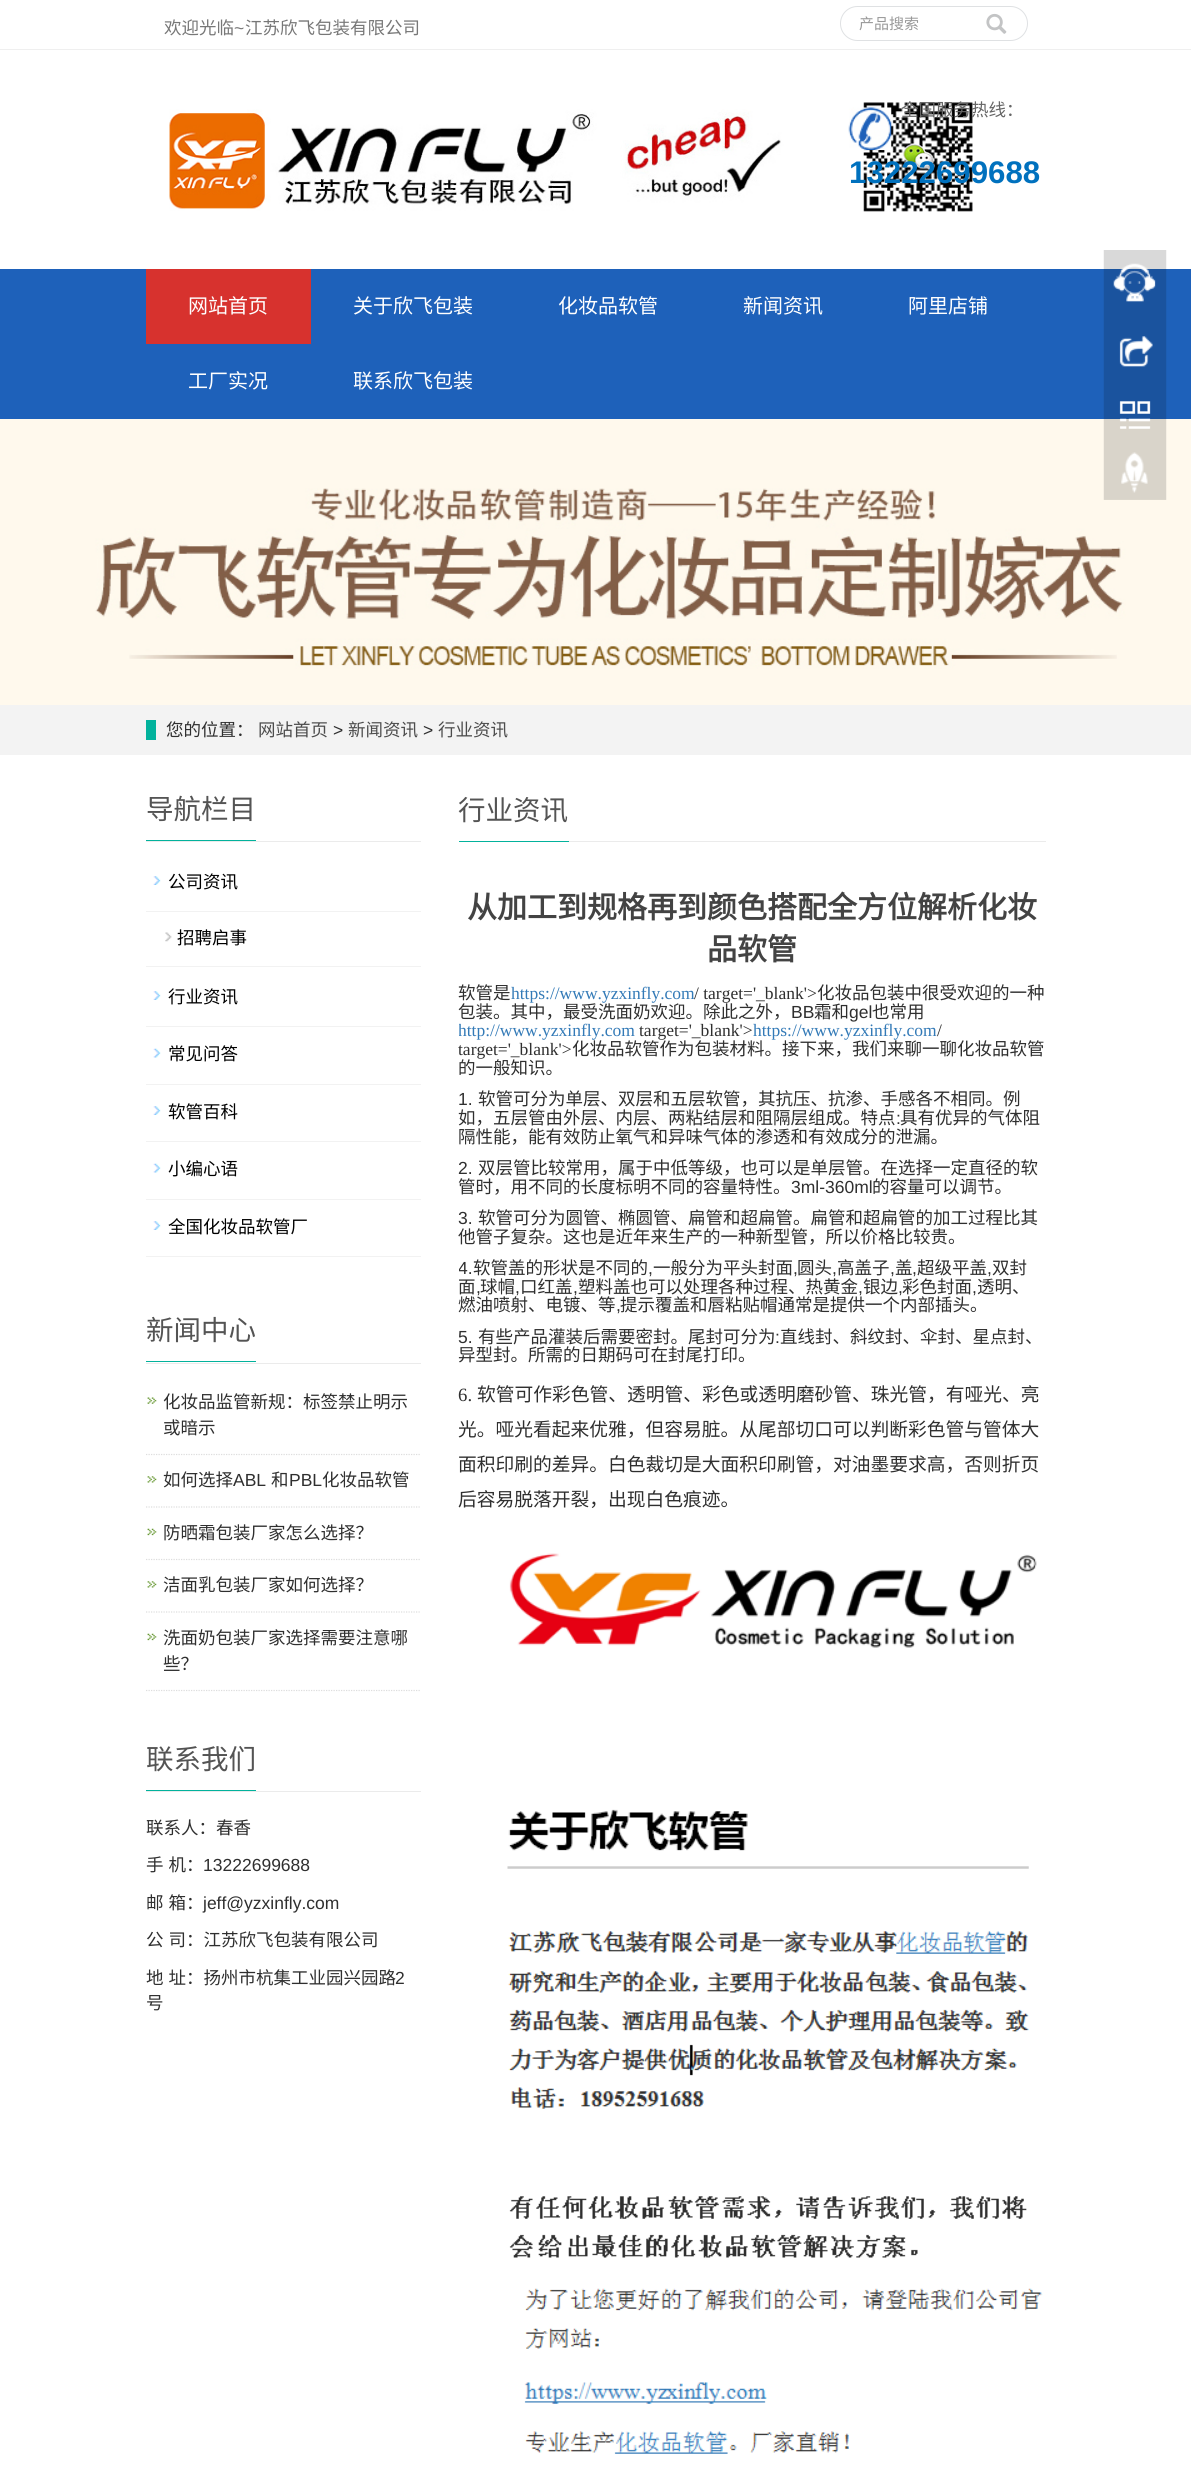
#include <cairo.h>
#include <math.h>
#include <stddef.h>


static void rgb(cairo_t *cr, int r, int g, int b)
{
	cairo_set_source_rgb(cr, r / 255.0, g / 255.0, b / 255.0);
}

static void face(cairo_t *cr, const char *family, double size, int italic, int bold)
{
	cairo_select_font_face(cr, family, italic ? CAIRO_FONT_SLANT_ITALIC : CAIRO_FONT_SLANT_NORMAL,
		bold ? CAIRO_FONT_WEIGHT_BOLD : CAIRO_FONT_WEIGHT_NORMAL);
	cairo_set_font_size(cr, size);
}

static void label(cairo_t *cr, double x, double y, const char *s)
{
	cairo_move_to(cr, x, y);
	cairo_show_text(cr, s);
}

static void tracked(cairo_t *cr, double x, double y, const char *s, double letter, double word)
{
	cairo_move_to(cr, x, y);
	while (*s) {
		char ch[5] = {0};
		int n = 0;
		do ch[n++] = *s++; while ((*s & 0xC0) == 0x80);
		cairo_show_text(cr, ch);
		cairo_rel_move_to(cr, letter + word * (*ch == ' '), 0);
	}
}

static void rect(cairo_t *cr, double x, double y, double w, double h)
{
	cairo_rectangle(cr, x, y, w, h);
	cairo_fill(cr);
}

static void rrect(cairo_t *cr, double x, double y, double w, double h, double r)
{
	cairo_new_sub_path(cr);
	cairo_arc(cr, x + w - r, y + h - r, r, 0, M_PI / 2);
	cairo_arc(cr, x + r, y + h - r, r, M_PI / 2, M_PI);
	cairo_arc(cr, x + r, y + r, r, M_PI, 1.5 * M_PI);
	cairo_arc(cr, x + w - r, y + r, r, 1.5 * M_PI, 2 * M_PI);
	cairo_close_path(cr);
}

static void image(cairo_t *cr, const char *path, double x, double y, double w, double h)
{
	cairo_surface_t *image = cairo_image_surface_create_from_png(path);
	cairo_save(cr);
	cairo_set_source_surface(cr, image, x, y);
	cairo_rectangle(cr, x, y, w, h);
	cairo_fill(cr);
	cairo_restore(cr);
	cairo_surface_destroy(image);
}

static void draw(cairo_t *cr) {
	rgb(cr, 255, 255, 255);
	cairo_paint(cr);
	rgb(cr, 239, 239, 239);
	rect(cr, 0, 49, 1191, 1);
	face(cr, "Noto Sans CJK SC", 17.5, 0, 0);
	rgb(cr, 119, 119, 119);
	label(cr, 164, 34, "欢迎光临");
	face(cr, "Liberation Sans", 17.5, 0, 0);
	label(cr, 234, 34, "~");
	face(cr, "Noto Sans CJK SC", 17.5, 0, 0);
	label(cr, 245, 34, "江苏欣飞包装有限公司");
	rrect(cr, 840.5, 6.5, 187, 34, 17);
	rgb(cr, 223, 225, 227);
	cairo_set_line_width(cr, 1);
	cairo_stroke(cr);
	face(cr, "Noto Sans CJK SC", 15, 0, 0);
	rgb(cr, 153, 153, 153);
	label(cr, 859, 29, "产品搜索");
	image(cr, "image0.png", 986, 13, 21, 21);
	image(cr, "image2.png", 169, 102, 804, 110);
	image(cr, "image1.png", 848, 107, 44, 43);
	face(cr, "Noto Sans CJK SC", 17.5, 0, 0);
	rgb(cr, 102, 102, 102);
	label(cr, 901, 116, "全国服务热线：");
	face(cr, "Liberation Sans", 31.25, 0, 1);
	rgb(cr, 0, 113, 190);
	label(cr, 849, 183, "13222699688");
	rgb(cr, 30, 97, 186);
	rect(cr, 0, 269, 1191, 150);
	rgb(cr, 215, 50, 46);
	rect(cr, 146, 269, 165, 75);
	face(cr, "Noto Sans CJK SC", 20, 0, 0);
	rgb(cr, 255, 255, 255);
	label(cr, 188, 313, "网站首页");
	label(cr, 353, 313, "关于欣飞包装");
	label(cr, 558, 313, "化妆品软管");
	label(cr, 743, 313, "新闻资讯");
	label(cr, 908, 313, "阿里店铺");
	label(cr, 188, 388, "工厂实况");
	label(cr, 353, 388, "联系欣飞包装");
	image(cr, "image4.png", 0, 419, 1191, 286);
	image(cr, "image3.png", 1103, 250, 64, 250);
	rgb(cr, 243, 243, 243);
	rect(cr, 0, 705, 1191, 50);
	face(cr, "Noto Sans CJK SC", 17.5, 0, 0);
	rgb(cr, 47, 47, 47);
	label(cr, 166, 736, "您的位置：");
	rgb(cr, 2, 178, 156);
	rect(cr, 146, 720, 10, 20);
	rgb(cr, 76, 76, 76);
	label(cr, 258, 736, "网站首页");
	face(cr, "Liberation Sans", 17.5, 0, 0);
	rgb(cr, 47, 47, 47);
	label(cr, 333, 736, ">");
	face(cr, "Noto Sans CJK SC", 17.5, 0, 0);
	rgb(cr, 76, 76, 76);
	label(cr, 348, 736, "新闻资讯");
	face(cr, "Liberation Sans", 17.5, 0, 0);
	rgb(cr, 47, 47, 47);
	label(cr, 423, 736, ">");
	face(cr, "Noto Sans CJK SC", 17.5, 0, 0);
	rgb(cr, 76, 76, 76);
	label(cr, 438, 736, "行业资讯");
	rgb(cr, 235, 235, 235);
	rect(cr, 146, 841, 275, 1);
	rgb(cr, 2, 178, 156);
	rect(cr, 146, 840, 110, 1);
	face(cr, "Noto Sans CJK SC", 27.5, 0, 0);
	rgb(cr, 84, 84, 84);
	label(cr, 146, 819, "导航栏目");
	image(cr, "image5.png", 153, 876, 8, 9);
	rgb(cr, 242, 242, 242);
	rect(cr, 146, 911, 275, 1);
	face(cr, "Noto Sans CJK SC", 17.5, 0, 0);
	rgb(cr, 0, 0, 0);
	label(cr, 168, 888, "公司资讯");
	image(cr, "image6.png", 165, 932, 7, 10);
	rgb(cr, 242, 242, 242);
	rect(cr, 146, 966, 275, 1);
	rgb(cr, 0, 0, 0);
	label(cr, 177, 944, "招聘启事");
	image(cr, "image5.png", 153, 991, 8, 9);
	rgb(cr, 242, 242, 242);
	rect(cr, 146, 1026, 275, 1);
	rgb(cr, 0, 0, 0);
	label(cr, 168, 1003, "行业资讯");
	image(cr, "image7.png", 153, 1048, 8, 10);
	rgb(cr, 242, 242, 242);
	rect(cr, 146, 1084, 275, 1);
	rgb(cr, 0, 0, 0);
	label(cr, 168, 1060, "常见问答");
	image(cr, "image5.png", 153, 1106, 8, 9);
	rgb(cr, 242, 242, 242);
	rect(cr, 146, 1141, 275, 1);
	rgb(cr, 0, 0, 0);
	label(cr, 168, 1118, "软管百科");
	image(cr, "image7.png", 153, 1163, 8, 10);
	rgb(cr, 242, 242, 242);
	rect(cr, 146, 1199, 275, 1);
	rgb(cr, 0, 0, 0);
	label(cr, 168, 1175, "小编心语");
	image(cr, "image5.png", 153, 1221, 8, 9);
	rgb(cr, 242, 242, 242);
	rect(cr, 146, 1256, 275, 1);
	rgb(cr, 0, 0, 0);
	label(cr, 168, 1233, "全国化妆品软管厂");
	rgb(cr, 235, 235, 235);
	rect(cr, 146, 1363, 275, 1);
	rgb(cr, 2, 178, 156);
	rect(cr, 146, 1361, 110, 1);
	face(cr, "Noto Sans CJK SC", 27.5, 0, 0);
	rgb(cr, 84, 84, 84);
	label(cr, 146, 1340, "新闻中心");
	image(cr, "image8.png", 147, 1397, 10, 7);
	cairo_new_path(cr);
	cairo_move_to(cr, 146, 1454.5);
	cairo_line_to(cr, 421, 1454.5);
	rgb(cr, 221, 221, 221);
	cairo_set_line_width(cr, 1.2);
	cairo_set_dash(cr, (double[]){1.25, 1.25}, 2, 0);
	cairo_stroke(cr);
	face(cr, "Noto Sans CJK SC", 17.5, 0, 0);
	rgb(cr, 47, 47, 47);
	label(cr, 163, 1408, "化妆品监管新规：标签禁止明示");
	label(cr, 163, 1434, "或暗示");
	image(cr, "image9.png", 147, 1476, 10, 7);
	cairo_new_path(cr);
	cairo_move_to(cr, 146, 1507);
	cairo_line_to(cr, 421, 1507);
	rgb(cr, 221, 221, 221);
	cairo_stroke(cr);
	rgb(cr, 47, 47, 47);
	label(cr, 163, 1486, "如何选择");
	face(cr, "Liberation Sans", 17.5, 0, 0);
	label(cr, 233, 1486, "ABL");
	face(cr, "Noto Sans CJK SC", 17.5, 0, 0);
	label(cr, 271, 1486, "和");
	face(cr, "Liberation Sans", 17.5, 0, 0);
	label(cr, 289, 1486, "PBL");
	face(cr, "Noto Sans CJK SC", 17.5, 0, 0);
	label(cr, 322, 1486, "化妆品软管");
	image(cr, "image10.png", 147, 1528, 10, 8);
	cairo_new_path(cr);
	cairo_move_to(cr, 146, 1559.5);
	cairo_line_to(cr, 421, 1559.5);
	rgb(cr, 221, 221, 221);
	cairo_stroke(cr);
	rgb(cr, 47, 47, 47);
	label(cr, 163, 1539, "防晒霜包装厂家怎么选择？");
	image(cr, "image9.png", 147, 1581, 10, 7);
	cairo_new_path(cr);
	cairo_move_to(cr, 146, 1612);
	cairo_line_to(cr, 421, 1612);
	rgb(cr, 221, 221, 221);
	cairo_stroke(cr);
	rgb(cr, 47, 47, 47);
	label(cr, 163, 1591, "洁面乳包装厂家如何选择？");
	image(cr, "image10.png", 147, 1633, 10, 8);
	cairo_new_path(cr);
	cairo_move_to(cr, 146, 1690.5);
	cairo_line_to(cr, 421, 1690.5);
	rgb(cr, 221, 221, 221);
	cairo_stroke(cr);
	rgb(cr, 47, 47, 47);
	label(cr, 163, 1644, "洗面奶包装厂家选择需要注意哪");
	label(cr, 163, 1670, "些？");
	rgb(cr, 235, 235, 235);
	rect(cr, 146, 1791, 275, 1);
	rgb(cr, 2, 178, 156);
	rect(cr, 146, 1790, 110, 1);
	face(cr, "Noto Sans CJK SC", 27.5, 0, 0);
	rgb(cr, 84, 84, 84);
	label(cr, 146, 1769, "联系我们");
	face(cr, "Noto Sans CJK SC", 17.5, 0, 0);
	rgb(cr, 47, 47, 47);
	label(cr, 146, 1834, "联系人：春香");
	tracked(cr, 146, 1871, "手 机：", 0, 1);
	face(cr, "Liberation Sans", 17.5, 0, 0);
	label(cr, 203, 1871, "13222699688");
	face(cr, "Noto Sans CJK SC", 17.5, 0, 0);
	tracked(cr, 146, 1909, "邮 箱：", 0, 1);
	face(cr, "Liberation Sans", 17.5, 0, 0);
	label(cr, 203, 1909, "jeff@yzxinfly.com");
	face(cr, "Noto Sans CJK SC", 17.5, 0, 0);
	tracked(cr, 146, 1946, "公 司：江苏欣飞包装有限公司", 0, 1);
	tracked(cr, 146, 1984, "地 址：扬州市杭集工业园兴园路", 0, 1);
	face(cr, "Liberation Sans", 17.5, 0, 0);
	label(cr, 395, 1984, "2");
	face(cr, "Noto Sans CJK SC", 17.5, 0, 0);
	label(cr, 146, 2009, "号");
	rgb(cr, 235, 235, 235);
	rect(cr, 569, 841, 477, 1);
	rgb(cr, 2, 178, 156);
	rect(cr, 459, 841, 110, 1);
	face(cr, "Noto Sans CJK SC", 27.5, 0, 0);
	rgb(cr, 84, 84, 84);
	label(cr, 458, 820, "行业资讯");
	face(cr, "Noto Sans CJK SC", 30, 0, 1);
	rgb(cr, 67, 67, 67);
	label(cr, 467, 918, "从加工到规格再到颜色搭配全方位解析化妆");
	label(cr, 707, 960, "品软管");
	face(cr, "Noto Sans CJK SC", 17.5, 0, 0);
	rgb(cr, 47, 47, 47);
	label(cr, 458, 999, "软管是");
	face(cr, "Liberation Serif", 17.5, 0, 0);
	rgb(cr, 51, 122, 183);
	label(cr, 511, 999, "https://www.yzxinfly.com");
	rgb(cr, 47, 47, 47);
	label(cr, 694, 999, "/ target='_blank'>");
	face(cr, "Noto Sans CJK SC", 17.5, 0, 0);
	label(cr, 817, 999, "化妆品包装中很受欢迎的一种");
	label(cr, 458, 1018, "包装。其中，最受洗面奶欢迎。除此之外，");
	face(cr, "Liberation Sans", 17.5, 0, 0);
	label(cr, 791, 1018, "BB");
	face(cr, "Noto Sans CJK SC", 17.5, 0, 0);
	label(cr, 814, 1018, "霜和");
	face(cr, "Liberation Sans", 17.5, 0, 0);
	label(cr, 849, 1018, "gel");
	face(cr, "Noto Sans CJK SC", 17.5, 0, 0);
	label(cr, 872, 1018, "也常用");
	cairo_save(cr);
	cairo_rectangle(cr, 459, 855, 587, 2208);
	cairo_clip(cr);
	face(cr, "Liberation Serif", 17.5, 0, 0);
	rgb(cr, 51, 122, 183);
	label(cr, 458, 1036, "http://www.yzxinfly.com");
	cairo_restore(cr);
	face(cr, "Liberation Serif", 17.5, 0, 0);
	label(cr, 639, 1036, "target='_blank'>");
	rgb(cr, 51, 122, 183);
	label(cr, 753, 1036, "https://www.yzxinfly.com");
	rgb(cr, 47, 47, 47);
	label(cr, 937, 1036, "/");
	label(cr, 458, 1055, "target='_blank'>");
	face(cr, "Noto Sans CJK SC", 17.5, 0, 0);
	label(cr, 572, 1055, "化妆品软管作为包装材料。接下来，我们来聊一聊化妆品软管");
	label(cr, 458, 1074, "的一般知识。");
	face(cr, "Liberation Sans", 17.5, 0, 0);
	label(cr, 458, 1105, "1.");
	face(cr, "Noto Sans CJK SC", 17.5, 0, 0);
	label(cr, 478, 1105, "软管可分为单层、双层和五层软管，其抗压、抗渗、手感各不相同。例");
	label(cr, 458, 1124, "如，五层管由外层、内层、两粘结层和阻隔层组成。特点");
	face(cr, "Liberation Sans", 17.5, 0, 0);
	label(cr, 896, 1124, ":");
	face(cr, "Noto Sans CJK SC", 17.5, 0, 0);
	label(cr, 900, 1124, "具有优异的气体阻");
	label(cr, 458, 1143, "隔性能，能有效防止氧气和异味气体的渗透和有效成分的泄漏。");
	face(cr, "Liberation Sans", 17.5, 0, 0);
	label(cr, 458, 1174, "2.");
	face(cr, "Noto Sans CJK SC", 17.5, 0, 0);
	label(cr, 478, 1174, "双层管比较常用，属于中低等级，也可以是单层管。在选择一定直径的软");
	label(cr, 458, 1193, "管时，用不同的长度标明不同的容量特性。");
	face(cr, "Liberation Sans", 17.5, 0, 0);
	label(cr, 791, 1193, "3ml-360ml");
	face(cr, "Noto Sans CJK SC", 17.5, 0, 0);
	label(cr, 872, 1193, "的容量可以调节。");
	face(cr, "Liberation Sans", 17.5, 0, 0);
	label(cr, 458, 1224, "3.");
	face(cr, "Noto Sans CJK SC", 17.5, 0, 0);
	label(cr, 478, 1224, "软管可分为圆管、椭圆管、扁管和超扁管。扁管和超扁管的加工过程比其");
	label(cr, 458, 1243, "他管子复杂。这也是近年来生产的一种新型管，所以价格比较贵。");
	cairo_save(cr);
	cairo_rectangle(cr, 459, 855, 587, 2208);
	cairo_clip(cr);
	face(cr, "Liberation Sans", 17.5, 0, 0);
	label(cr, 458, 1274, "4.");
	cairo_restore(cr);
	label(cr, 473, 1274, "软管盖的形状是不同的");
	label(cr, 653, 1274, "一般分为平头封面");
	label(cr, 797, 1274, "圆头");
	label(cr, 837, 1274, "高盖子");
	label(cr, 895, 1274, "盖");
	label(cr, 917, 1274, "超级平盖");
	label(cr, 992, 1274, "双封");
	face(cr, "Liberation Sans", 17.5, 0, 0);
	label(cr, 648, 1274, ",");
	label(cr, 793, 1274, ",");
	label(cr, 832, 1274, ",");
	label(cr, 890, 1274, ",");
	label(cr, 912, 1274, ",");
	label(cr, 987, 1274, ",");
	face(cr, "Noto Sans CJK SC", 17.5, 0, 0);
	label(cr, 458, 1293, "面");
	face(cr, "Liberation Sans", 17.5, 0, 0);
	label(cr, 476, 1293, ",");
	face(cr, "Noto Sans CJK SC", 17.5, 0, 0);
	label(cr, 480, 1293, "球帽");
	face(cr, "Liberation Sans", 17.5, 0, 0);
	label(cr, 515, 1293, ",");
	face(cr, "Noto Sans CJK SC", 17.5, 0, 0);
	label(cr, 520, 1293, "口红盖");
	face(cr, "Liberation Sans", 17.5, 0, 0);
	label(cr, 573, 1293, ",");
	face(cr, "Noto Sans CJK SC", 17.5, 0, 0);
	label(cr, 578, 1293, "塑料盖也可以处理各种过程、热黄金");
	face(cr, "Liberation Sans", 17.5, 0, 0);
	label(cr, 858, 1293, ",");
	face(cr, "Noto Sans CJK SC", 17.5, 0, 0);
	label(cr, 863, 1293, "银边");
	face(cr, "Liberation Sans", 17.5, 0, 0);
	label(cr, 898, 1293, ",");
	face(cr, "Noto Sans CJK SC", 17.5, 0, 0);
	label(cr, 902, 1293, "彩色封面");
	face(cr, "Liberation Sans", 17.5, 0, 0);
	label(cr, 972, 1293, ",");
	face(cr, "Noto Sans CJK SC", 17.5, 0, 0);
	label(cr, 977, 1293, "透明、");
	label(cr, 458, 1311, "燃油喷射、电镀、等");
	face(cr, "Liberation Sans", 17.5, 0, 0);
	label(cr, 616, 1311, ",");
	face(cr, "Noto Sans CJK SC", 17.5, 0, 0);
	label(cr, 620, 1311, "提示覆盖和唇粘贴帽通常是提供一个内部插头。");
	face(cr, "Liberation Sans", 17.5, 0, 0);
	label(cr, 458, 1343, "5.");
	face(cr, "Noto Sans CJK SC", 17.5, 0, 0);
	label(cr, 478, 1343, "有些产品灌装后需要密封。尾封可分为");
	face(cr, "Liberation Sans", 17.5, 0, 0);
	label(cr, 775, 1343, ":");
	face(cr, "Noto Sans CJK SC", 17.5, 0, 0);
	label(cr, 780, 1343, "直线封、斜纹封、伞封、星点封、");
	label(cr, 458, 1361, "异型封。所需的日期码可在封尾打印。");
	face(cr, "Liberation Serif", 18.75, 0, 0);
	label(cr, 458, 1401, "6.");
	face(cr, "Noto Sans CJK SC", 18.75, 0, 0);
	label(cr, 477, 1401, "软管可作彩色管、透明管、彩色或透明磨砂管、珠光管，有哑光、亮");
	label(cr, 458, 1436, "光。哑光看起来优雅，但容易脏。从尾部切口可以判断彩色管与管体大");
	label(cr, 458, 1471, "面积印刷的差异。白色裁切是大面积印刷管，对油墨要求高，否则折页");
	label(cr, 458, 1506, "后容易脱落开裂，出现白色痕迹。");
	image(cr, "image11.png", 507, 1553, 530, 705);
	image(cr, "image12.png", 524, 2288, 519, 166);
}

int main(void) {
	cairo_surface_t *surface = cairo_image_surface_create(CAIRO_FORMAT_RGB24, 1191, 2492);
	cairo_t *cr = cairo_create(surface);
	cairo_font_options_t *options = cairo_font_options_create();
	cairo_font_options_set_hint_metrics(options, CAIRO_HINT_METRICS_OFF);
	cairo_font_options_set_hint_style(options, CAIRO_HINT_STYLE_NONE);
	cairo_set_font_options(cr, options);
	cairo_set_miter_limit(cr, 4);
	draw(cr);
	cairo_surface_write_to_png(surface, "render.png");
	cairo_font_options_destroy(options);
	cairo_destroy(cr);
	cairo_surface_destroy(surface);
	return 0;
}
